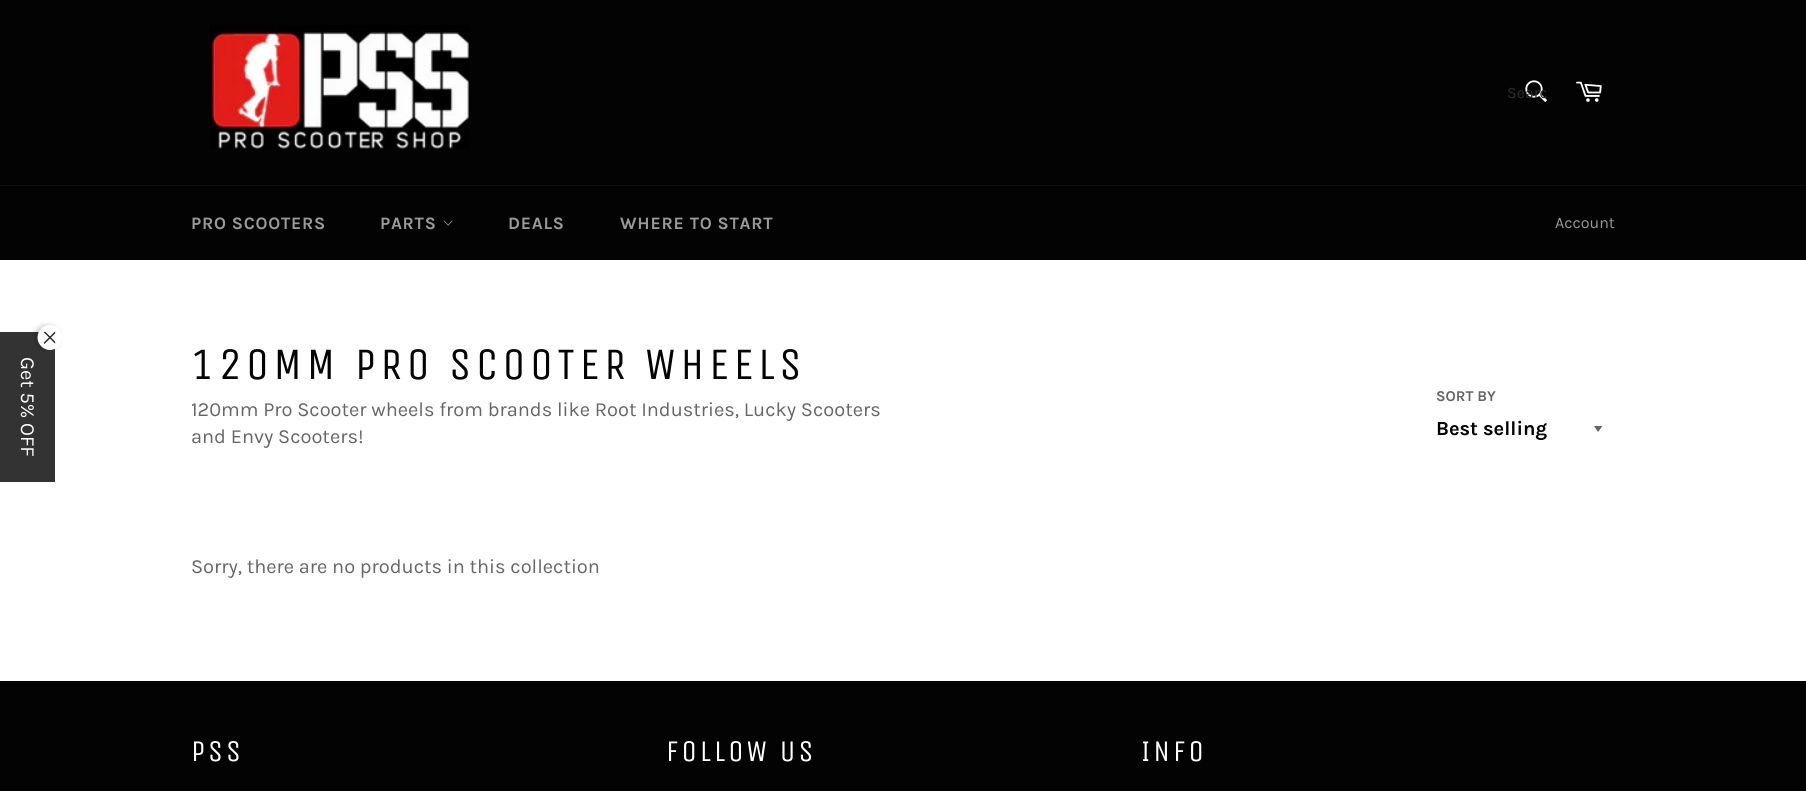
#include <cairo.h>
#include <math.h>
#include <stddef.h>


static void rgb(cairo_t *cr, int r, int g, int b)
{
	cairo_set_source_rgb(cr, r / 255.0, g / 255.0, b / 255.0);
}

static void face(cairo_t *cr, const char *family, double size, int italic, int bold)
{
	cairo_select_font_face(cr, family, italic ? CAIRO_FONT_SLANT_ITALIC : CAIRO_FONT_SLANT_NORMAL,
		bold ? CAIRO_FONT_WEIGHT_BOLD : CAIRO_FONT_WEIGHT_NORMAL);
	cairo_set_font_size(cr, size);
}

static void label(cairo_t *cr, double x, double y, const char *s)
{
	cairo_move_to(cr, x, y);
	cairo_show_text(cr, s);
}

static void tracked(cairo_t *cr, double x, double y, const char *s, double letter, double word)
{
	cairo_move_to(cr, x, y);
	while (*s) {
		char ch[5] = {0};
		int n = 0;
		do ch[n++] = *s++; while ((*s & 0xC0) == 0x80);
		cairo_show_text(cr, ch);
		cairo_rel_move_to(cr, letter + word * (*ch == ' '), 0);
	}
}

static void rect(cairo_t *cr, double x, double y, double w, double h)
{
	cairo_rectangle(cr, x, y, w, h);
	cairo_fill(cr);
}

static void image(cairo_t *cr, const char *path, double x, double y, double w, double h)
{
	cairo_surface_t *image = cairo_image_surface_create_from_png(path);
	cairo_save(cr);
	cairo_set_source_surface(cr, image, x, y);
	cairo_rectangle(cr, x, y, w, h);
	cairo_fill(cr);
	cairo_restore(cr);
	cairo_surface_destroy(image);
}

static void draw(cairo_t *cr) {
	rgb(cr, 255, 255, 255);
	cairo_paint(cr);
	rgb(cr, 3, 3, 3);
	rect(cr, 0, 0, 1806, 185);
	image(cr, "image0.png", 210, 25, 259, 124);
	image(cr, "image1.png", 1525, 80, 22, 22);
	cairo_save(cr);
	cairo_rectangle(cr, 1506, 84, 40, 19);
	cairo_clip(cr);
	face(cr, "Karla", 16, 0, 0);
	rgb(cr, 44, 44, 44);
	label(cr, 1507, 98, "Searc");
	cairo_restore(cr);
	image(cr, "image2.png", 1576, 81, 26, 21);
	rect(cr, 0, 186, 1806, 74);
	rgb(cr, 16, 16, 16);
	rect(cr, 0, 185, 1806, 1);
	face(cr, "Karla", 17.5, 0, 1);
	rgb(cr, 154, 154, 154);
	tracked(cr, 191, 229, "PRO SCOOTERS", 0.75, 0);
	tracked(cr, 380, 229, "PARTS", 0.75, 0);
	image(cr, "image3.png", 443, 220, 10, 6);
	tracked(cr, 508, 229, "DEALS", 0.75, 0);
	tracked(cr, 620, 229, "WHERE TO START", 0.75, 0);
	face(cr, "Karla", 16, 0, 0);
	label(cr, 1555, 228, "Account");
	rgb(cr, 51, 51, 51);
	rect(cr, 0, 332, 55, 150);
	image(cr, "image4.png", 32, 322, 31, 29);
	face(cr, "Karla", 20, 0, 0);
	rgb(cr, 255, 255, 255);
	cairo_save(cr);
	cairo_translate(cr, 21, 357);
	cairo_rotate(cr, 90 * M_PI / 180);
	label(cr, 0, 0, "Get 5% OFF");
	cairo_restore(cr);
	face(cr, "Unica One", 45, 0, 0);
	rgb(cr, 3, 3, 3);
	tracked(cr, 191, 379, "120MM PRO SCOOTER WHEELS", 4.5, 0);
	face(cr, "Karla", 20, 0, 0);
	rgb(cr, 102, 102, 102);
	label(cr, 191, 416, "120mm Pro Scooter wheels from brands like Root Industries, Lucky Scooters");
	label(cr, 191, 443, "and Envy Scooters!");
	face(cr, "Karla", 15, 0, 1);
	label(cr, 1436, 401, "SORT BY");
	cairo_new_path(cr);
	cairo_move_to(cr, 1594, 426);
	cairo_line_to(cr, 1598, 432);
	cairo_line_to(cr, 1602.5, 426);
	cairo_close_path(cr);
	cairo_fill(cr);
	face(cr, "Karla", 20, 0, 1);
	rgb(cr, 3, 3, 3);
	label(cr, 1436, 435, "Best selling");
	face(cr, "Karla", 20, 0, 0);
	rgb(cr, 102, 102, 102);
	label(cr, 191, 573, "Sorry, there are no products in this collection");
	rgb(cr, 3, 3, 3);
	rect(cr, 0, 681, 1806, 110);
	face(cr, "Unica One", 30, 0, 0);
	rgb(cr, 255, 255, 255);
	tracked(cr, 191, 761, "PSS", 3, 0);
	tracked(cr, 666, 761, "FOLLOW US", 3, 0);
	tracked(cr, 1141, 761, "INFO", 3, 0);
}

int main(void) {
	cairo_surface_t *surface = cairo_image_surface_create(CAIRO_FORMAT_RGB24, 1806, 791);
	cairo_t *cr = cairo_create(surface);
	cairo_font_options_t *options = cairo_font_options_create();
	cairo_font_options_set_hint_metrics(options, CAIRO_HINT_METRICS_OFF);
	cairo_font_options_set_hint_style(options, CAIRO_HINT_STYLE_NONE);
	cairo_set_font_options(cr, options);
	cairo_set_miter_limit(cr, 4);
	draw(cr);
	cairo_surface_write_to_png(surface, "render.png");
	cairo_font_options_destroy(options);
	cairo_destroy(cr);
	cairo_surface_destroy(surface);
	return 0;
}
